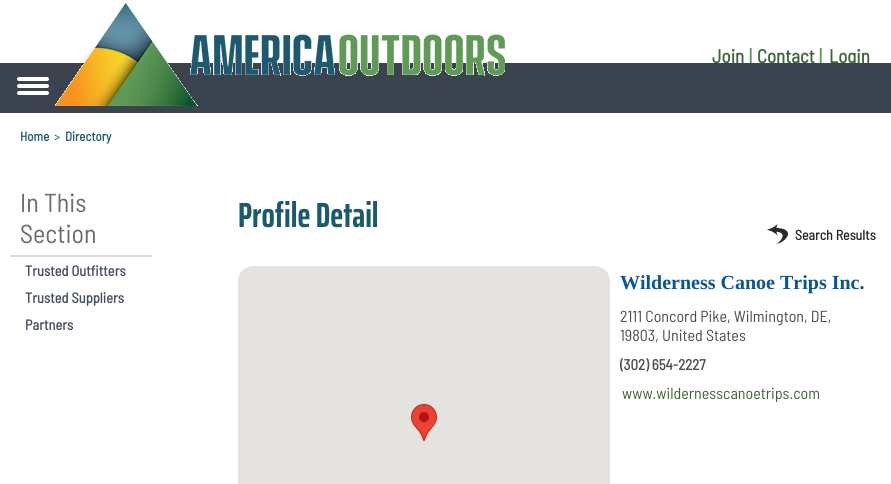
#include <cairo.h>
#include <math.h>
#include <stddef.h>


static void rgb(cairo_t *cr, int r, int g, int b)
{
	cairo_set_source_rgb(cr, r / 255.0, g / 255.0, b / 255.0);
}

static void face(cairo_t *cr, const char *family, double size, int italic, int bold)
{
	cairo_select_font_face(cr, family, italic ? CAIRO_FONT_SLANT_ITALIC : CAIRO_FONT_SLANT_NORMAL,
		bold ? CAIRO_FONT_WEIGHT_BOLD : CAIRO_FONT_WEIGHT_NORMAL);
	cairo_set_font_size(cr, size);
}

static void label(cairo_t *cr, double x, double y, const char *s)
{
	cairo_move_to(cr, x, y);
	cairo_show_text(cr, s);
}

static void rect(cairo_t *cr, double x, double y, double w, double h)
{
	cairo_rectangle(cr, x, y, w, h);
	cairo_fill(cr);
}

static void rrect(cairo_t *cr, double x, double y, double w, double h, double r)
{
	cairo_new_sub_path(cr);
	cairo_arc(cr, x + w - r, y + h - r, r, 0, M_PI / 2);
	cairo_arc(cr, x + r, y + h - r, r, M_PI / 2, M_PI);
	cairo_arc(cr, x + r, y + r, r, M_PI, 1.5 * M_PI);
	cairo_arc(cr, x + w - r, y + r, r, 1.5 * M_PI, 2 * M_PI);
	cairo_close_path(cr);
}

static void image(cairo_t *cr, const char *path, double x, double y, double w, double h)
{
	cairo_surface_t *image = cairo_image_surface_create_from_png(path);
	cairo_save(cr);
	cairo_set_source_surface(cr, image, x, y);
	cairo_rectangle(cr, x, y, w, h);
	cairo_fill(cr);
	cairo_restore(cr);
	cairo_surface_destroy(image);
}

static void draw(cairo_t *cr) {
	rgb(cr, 255, 255, 255);
	cairo_paint(cr);
	face(cr, "Barlow Semi Condensed", 19, 0, 1);
	rgb(cr, 64, 101, 57);
	label(cr, 712, 63, "Join");
	rgb(cr, 96, 155, 87);
	label(cr, 749, 63, "|");
	rgb(cr, 64, 101, 57);
	label(cr, 757, 63, "Contact");
	rgb(cr, 96, 155, 87);
	label(cr, 819, 63, "|");
	rgb(cr, 64, 101, 57);
	label(cr, 829, 63, "Login");
	rgb(cr, 59, 68, 78);
	rect(cr, 0, 63, 891, 50);
	image(cr, "image0.png", 55, 3, 450, 103);
	rgb(cr, 255, 255, 255);
	rrect(cr, 17, 77, 32, 4, 2);
	cairo_fill(cr);
	rrect(cr, 17, 84, 32, 4, 2);
	cairo_fill(cr);
	rrect(cr, 17, 91, 32, 4, 2);
	cairo_fill(cr);
	face(cr, "Barlow Semi Condensed", 13, 0, 1);
	rgb(cr, 27, 90, 110);
	label(cr, 20, 141, "Home");
	face(cr, "Barlow Semi Condensed", 13, 0, 0);
	label(cr, 54, 141, ">");
	face(cr, "Barlow Semi Condensed", 13, 0, 1);
	label(cr, 65, 141, "Directory");
	rgb(cr, 219, 219, 219);
	rect(cr, 10, 255, 142, 2);
	face(cr, "Barlow Semi Condensed", 26, 0, 0);
	rgb(cr, 106, 108, 113);
	label(cr, 20, 212, "In This");
	label(cr, 20, 243, "Section");
	face(cr, "Barlow Semi Condensed", 14.5, 0, 1);
	rgb(cr, 68, 78, 95);
	label(cr, 25, 276, "Trusted Outfitters");
	label(cr, 25, 303, "Trusted Suppliers");
	label(cr, 25, 330, "Partners");
	face(cr, "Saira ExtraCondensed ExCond", 35, 0, 1);
	rgb(cr, 27, 90, 110);
	label(cr, 238, 227, "Profile Detail");
	image(cr, "image1.png", 767, 224, 21, 20);
	face(cr, "Barlow Semi Condensed", 14, 0, 1);
	rgb(cr, 37, 41, 41);
	label(cr, 795, 240, "Search Results");
	rgb(cr, 229, 227, 223);
	rrect(cr, 238, 266, 372, 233, 15);
	cairo_fill(cr);
	image(cr, "image2.png", 411, 404, 26, 37);
	face(cr, "Liberation Serif", 20, 0, 1);
	rgb(cr, 8, 86, 150);
	label(cr, 620, 289, "Wilderness Canoe Trips Inc.");
	face(cr, "Barlow Semi Condensed", 16, 0, 0);
	rgb(cr, 77, 77, 77);
	label(cr, 620, 322, "2111 Concord Pike, Wilmington, DE,");
	label(cr, 620, 341, "19803, United States");
	face(cr, "Barlow Semi Condensed", 15, 0, 1);
	label(cr, 620, 370, "(302) 654-2227");
	face(cr, "Barlow Semi Condensed", 16, 0, 0);
	rgb(cr, 64, 101, 57);
	label(cr, 622, 399, "www.wildernesscanoetrips.com");
}

int main(void) {
	cairo_surface_t *surface = cairo_image_surface_create(CAIRO_FORMAT_RGB24, 891, 484);
	cairo_t *cr = cairo_create(surface);
	cairo_font_options_t *options = cairo_font_options_create();
	cairo_font_options_set_hint_metrics(options, CAIRO_HINT_METRICS_OFF);
	cairo_font_options_set_hint_style(options, CAIRO_HINT_STYLE_NONE);
	cairo_set_font_options(cr, options);
	cairo_set_miter_limit(cr, 4);
	draw(cr);
	cairo_surface_write_to_png(surface, "render.png");
	cairo_font_options_destroy(options);
	cairo_destroy(cr);
	cairo_surface_destroy(surface);
	return 0;
}
